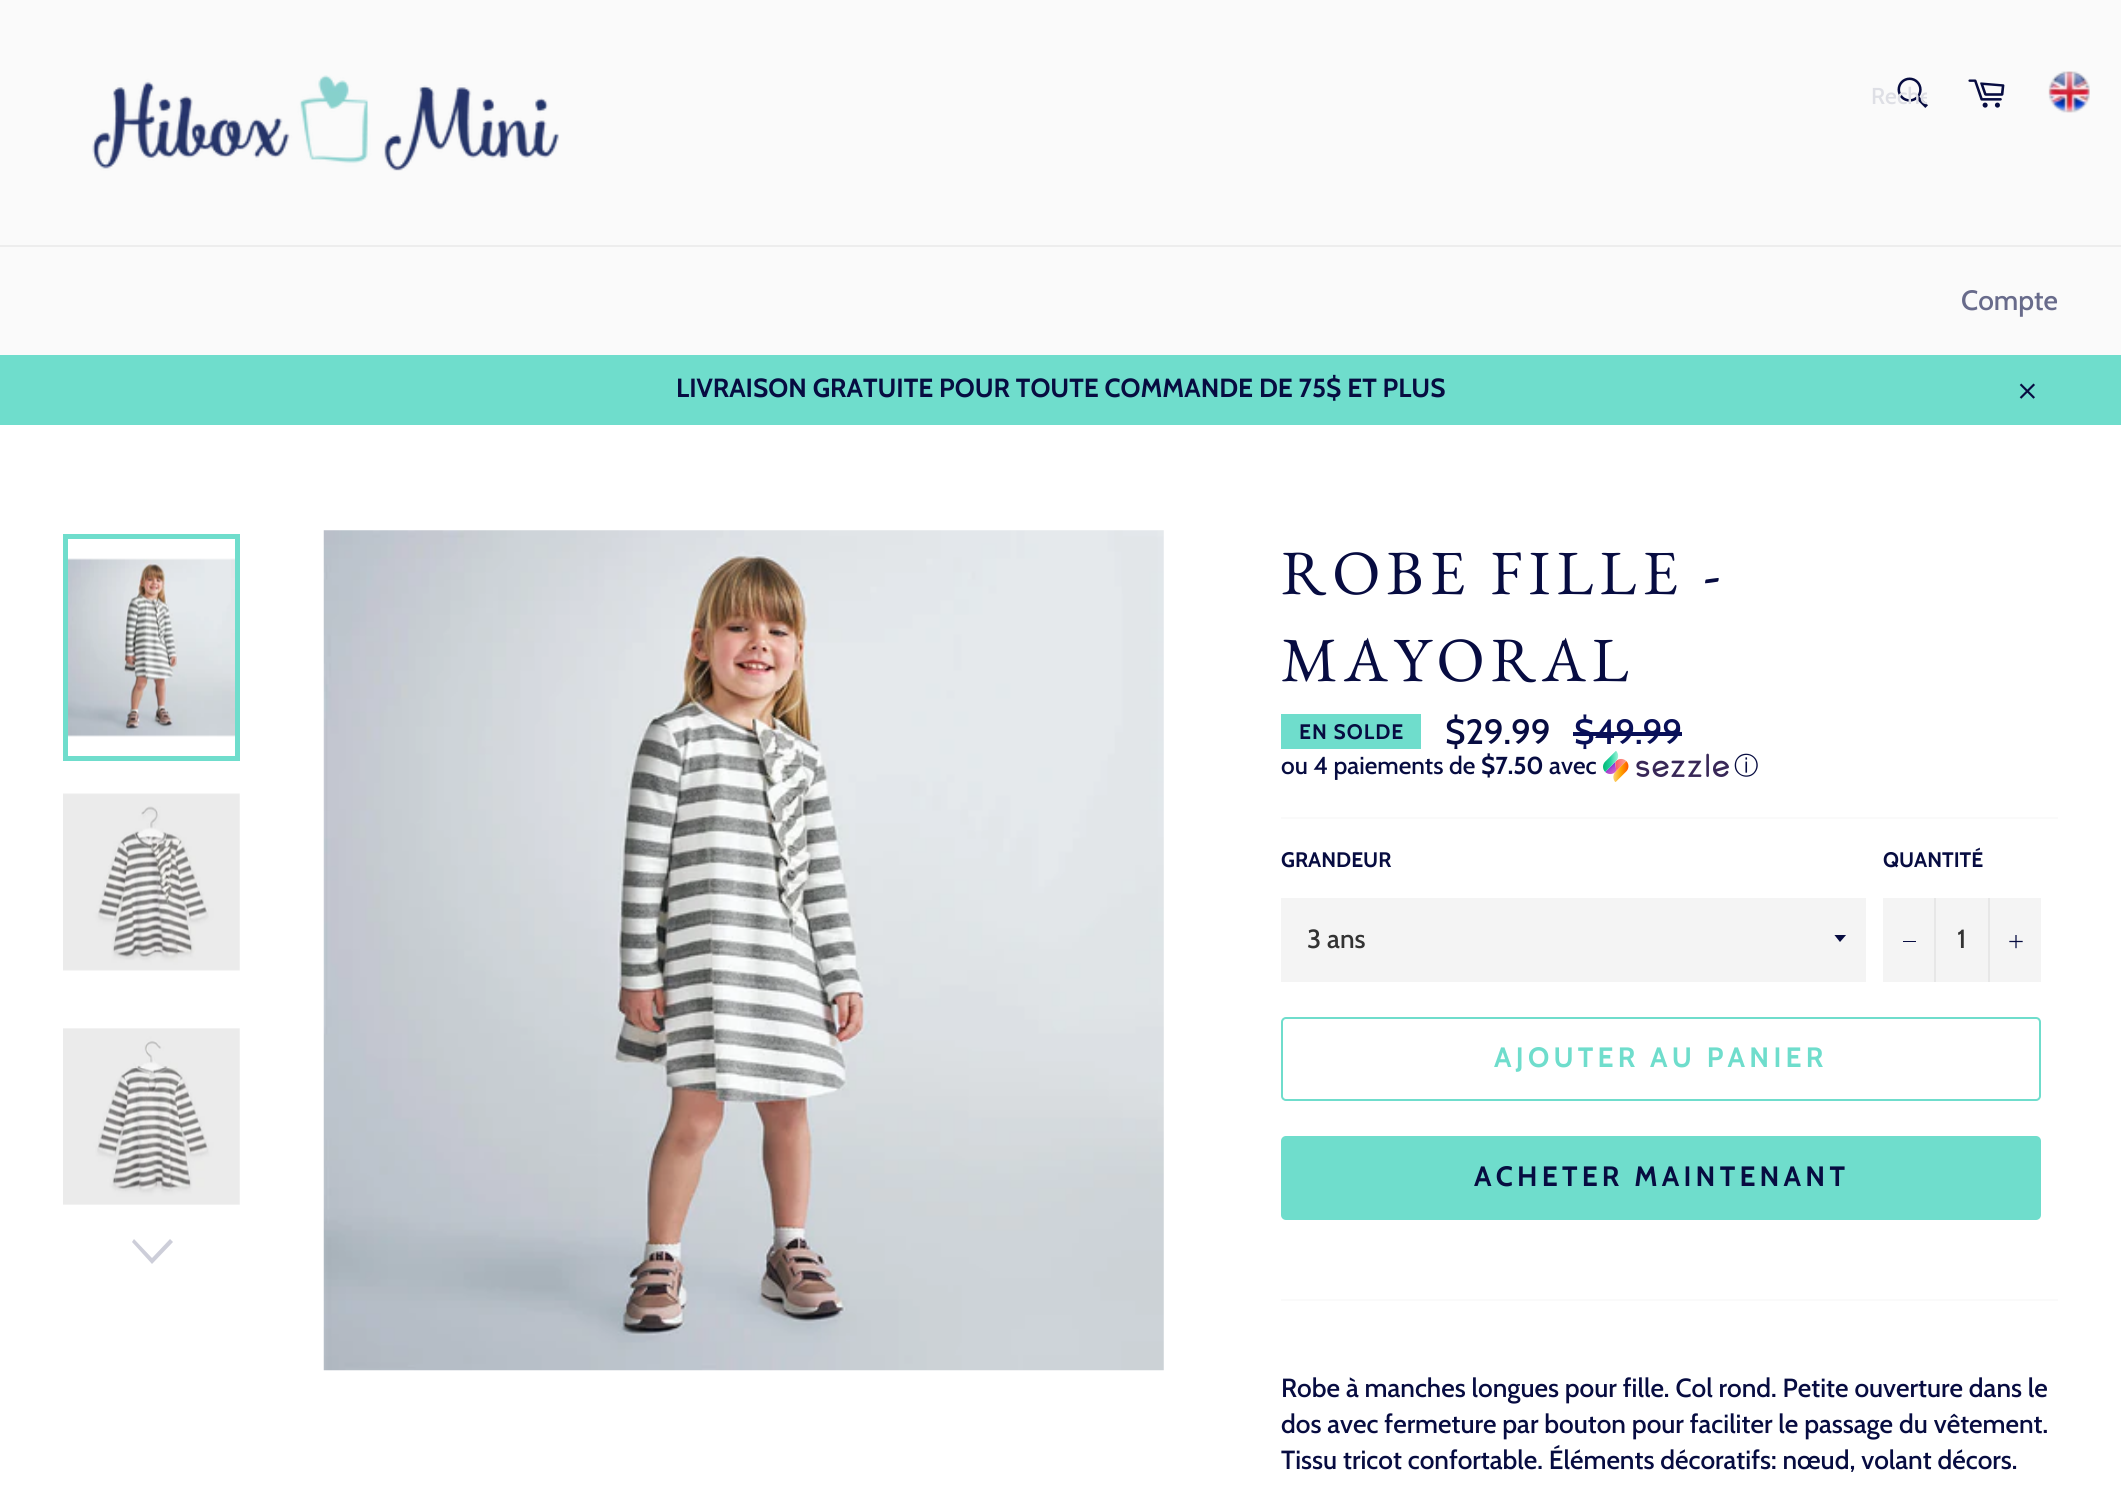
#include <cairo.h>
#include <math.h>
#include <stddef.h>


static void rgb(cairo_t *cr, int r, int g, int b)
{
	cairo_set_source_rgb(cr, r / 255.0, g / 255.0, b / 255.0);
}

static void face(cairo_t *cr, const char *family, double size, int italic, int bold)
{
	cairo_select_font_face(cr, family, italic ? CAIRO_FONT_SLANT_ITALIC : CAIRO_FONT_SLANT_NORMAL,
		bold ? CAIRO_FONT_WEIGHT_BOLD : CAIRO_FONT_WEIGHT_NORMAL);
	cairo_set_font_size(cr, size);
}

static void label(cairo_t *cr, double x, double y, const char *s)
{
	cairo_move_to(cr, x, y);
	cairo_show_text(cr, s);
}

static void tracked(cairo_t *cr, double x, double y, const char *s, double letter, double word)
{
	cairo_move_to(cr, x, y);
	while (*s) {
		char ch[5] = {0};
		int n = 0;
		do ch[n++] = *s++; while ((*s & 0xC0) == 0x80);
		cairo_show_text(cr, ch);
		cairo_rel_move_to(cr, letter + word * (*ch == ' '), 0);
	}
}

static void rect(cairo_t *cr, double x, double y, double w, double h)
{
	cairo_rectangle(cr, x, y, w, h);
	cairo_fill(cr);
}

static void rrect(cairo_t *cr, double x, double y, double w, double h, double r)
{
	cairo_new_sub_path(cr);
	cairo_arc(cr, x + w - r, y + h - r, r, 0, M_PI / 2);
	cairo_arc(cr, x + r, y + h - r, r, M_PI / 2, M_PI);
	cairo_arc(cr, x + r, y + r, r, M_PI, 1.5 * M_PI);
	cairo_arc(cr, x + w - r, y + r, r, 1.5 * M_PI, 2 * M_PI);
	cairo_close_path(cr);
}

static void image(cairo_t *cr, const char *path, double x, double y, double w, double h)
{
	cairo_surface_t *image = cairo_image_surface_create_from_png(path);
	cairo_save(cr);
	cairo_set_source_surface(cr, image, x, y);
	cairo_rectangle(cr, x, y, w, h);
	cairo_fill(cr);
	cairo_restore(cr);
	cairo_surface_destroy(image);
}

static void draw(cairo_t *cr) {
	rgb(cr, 250, 250, 250);
	cairo_paint(cr);
	image(cr, "image0.png", 92, 75, 467, 96);
	image(cr, "image1.png", 1897, 77, 31, 31);
	cairo_save(cr);
	cairo_rectangle(cr, 1871, 82, 56, 28);
	cairo_clip(cr);
	face(cr, "Cabin Medium", 23, 0, 0);
	rgb(cr, 222, 223, 229);
	label(cr, 1871, 104, "Reche");
	cairo_restore(cr);
	image(cr, "image2.png", 1968, 79, 37, 29);
	image(cr, "image3.png", 2048, 71, 42, 42);
	rgb(cr, 237, 237, 237);
	rect(cr, 0, 245, 2121, 2);
	face(cr, "Cabin Medium", 28, 0, 0);
	rgb(cr, 104, 107, 139);
	label(cr, 1961, 310, "Compte");
	rgb(cr, 111, 221, 204);
	rect(cr, 0, 355, 2121, 70);
	face(cr, "Cabin", 26.25, 0, 1);
	rgb(cr, 7, 12, 65);
	label(cr, 676, 397, "LIVRAISON GRATUITE POUR TOUTE COMMANDE DE 75$ ET PLUS");
	image(cr, "image4.png", 2019, 383, 16, 16);
	rgb(cr, 255, 255, 255);
	rect(cr, 0, 425, 2121, 1072);
	image(cr, "image5.png", 68, 558, 167, 179);
	cairo_rectangle(cr, 65.5, 536.5, 172, 222);
	rgb(cr, 111, 221, 204);
	cairo_set_line_width(cr, 5);
	cairo_stroke(cr);
	image(cr, "image6.png", 63, 793, 177, 178);
	image(cr, "image7.png", 63, 1028, 177, 177);
	rgb(cr, 205, 206, 217);
	cairo_new_path(cr);
	cairo_move_to(cr, 170, 1239);
	cairo_line_to(cr, 173, 1242);
	cairo_line_to(cr, 152, 1264);
	cairo_line_to(cr, 132, 1242);
	cairo_line_to(cr, 134, 1239);
	cairo_line_to(cr, 152, 1258);
	cairo_close_path(cr);
	cairo_fill(cr);
	image(cr, "image8.png", 323, 530, 841, 841);
	face(cr, "EB Garamond", 63, 0, 0);
	rgb(cr, 7, 12, 65);
	tracked(cr, 1281, 594, "ROBE FILLE -", 6.25, 0);
	tracked(cr, 1281, 681, "MAYORAL", 6.25, 0);
	rgb(cr, 111, 221, 204);
	rect(cr, 1281, 714, 140, 35);
	face(cr, "Cabin", 21, 0, 1);
	rgb(cr, 7, 12, 65);
	tracked(cr, 1299, 739, "EN SOLDE", 1, 0);
	face(cr, "Cabin Medium", 35, 0, 0);
	label(cr, 1445, 744, "$29.99");
	rgb(cr, 9, 16, 88);
	label(cr, 1574, 744, "$49.99");
	rect(cr, 1573, 732, 109, 4);
	face(cr, "Cabin Medium", 24.5, 0, 0);
	rgb(cr, 7, 12, 65);
	label(cr, 1281, 774, "ou 4 paiements de");
	face(cr, "Cabin", 24.5, 0, 1);
	label(cr, 1481, 774, "$7.50");
	face(cr, "Cabin Medium", 24.5, 0, 0);
	label(cr, 1549, 774, "avec");
	image(cr, "image9.png", 1603, 751, 126, 31);
	face(cr, "WenQuanYi Zen Hei Medium", 24.5, 0, 0);
	label(cr, 1734, 774, "ⓘ");
	rgb(cr, 250, 250, 250);
	rect(cr, 1281, 817, 777, 2);
	face(cr, "Cabin", 21, 0, 1);
	rgb(cr, 7, 12, 65);
	label(cr, 1281, 867, "GRANDEUR");
	rgb(cr, 244, 244, 244);
	rect(cr, 1281, 898, 585, 84);
	cairo_save(cr);
	cairo_rectangle(cr, 1834, 935, 14, 8);
	cairo_clip(cr);
	rgb(cr, 7, 12, 65);
	cairo_new_path(cr);
	cairo_move_to(cr, 1834, 934.5);
	cairo_line_to(cr, 1840, 942);
	cairo_line_to(cr, 1846.5, 934.5);
	cairo_close_path(cr);
	cairo_fill(cr);
	cairo_restore(cr);
	face(cr, "Cabin Medium", 26.25, 0, 0);
	rgb(cr, 51, 51, 51);
	label(cr, 1307, 948, "3 ans");
	face(cr, "Cabin", 21, 0, 1);
	rgb(cr, 7, 12, 65);
	label(cr, 1883, 867, "QUANTITÉ");
	rgb(cr, 244, 244, 244);
	rect(cr, 1883, 898, 158, 84);
	rgb(cr, 231, 231, 231);
	rect(cr, 1934, 898, 2, 84);
	rgb(cr, 7, 12, 65);
	rect(cr, 1903, 941, 13, 1);
	face(cr, "Cabin Medium", 26.25, 0, 0);
	rgb(cr, 51, 51, 51);
	label(cr, 1957, 948, "1");
	rgb(cr, 231, 231, 231);
	rect(cr, 1988, 898, 2, 84);
	image(cr, "image10.png", 2009, 935, 14, 14);
	rrect(cr, 1282, 1018, 758, 82, 4);
	rgb(cr, 111, 221, 204);
	cairo_set_line_width(cr, 2);
	cairo_stroke(cr);
	face(cr, "Cabin", 28, 0, 1);
	tracked(cr, 1494, 1067, "AJOUTER AU PANIER", 4.25, 0);
	rrect(cr, 1281, 1136, 760, 84, 5);
	cairo_fill(cr);
	rgb(cr, 7, 12, 65);
	tracked(cr, 1474, 1186, "ACHETER MAINTENANT", 4.25, 0);
	rgb(cr, 250, 250, 250);
	rect(cr, 1281, 1299, 777, 2);
	face(cr, "Cabin Medium", 26.25, 0, 0);
	rgb(cr, 7, 12, 65);
	label(cr, 1281, 1397, "Robe à manches longues pour fille. Col rond. Petite ouverture dans le");
	label(cr, 1281, 1433, "dos avec fermeture par bouton pour faciliter le passage du vêtement.");
	label(cr, 1281, 1469, "Tissu tricot confortable. Éléments décoratifs: nœud, volant décors.");
}

int main(void) {
	cairo_surface_t *surface = cairo_image_surface_create(CAIRO_FORMAT_RGB24, 2121, 1497);
	cairo_t *cr = cairo_create(surface);
	cairo_font_options_t *options = cairo_font_options_create();
	cairo_font_options_set_hint_metrics(options, CAIRO_HINT_METRICS_OFF);
	cairo_font_options_set_hint_style(options, CAIRO_HINT_STYLE_NONE);
	cairo_set_font_options(cr, options);
	cairo_set_miter_limit(cr, 4);
	draw(cr);
	cairo_surface_write_to_png(surface, "render.png");
	cairo_font_options_destroy(options);
	cairo_destroy(cr);
	cairo_surface_destroy(surface);
	return 0;
}
